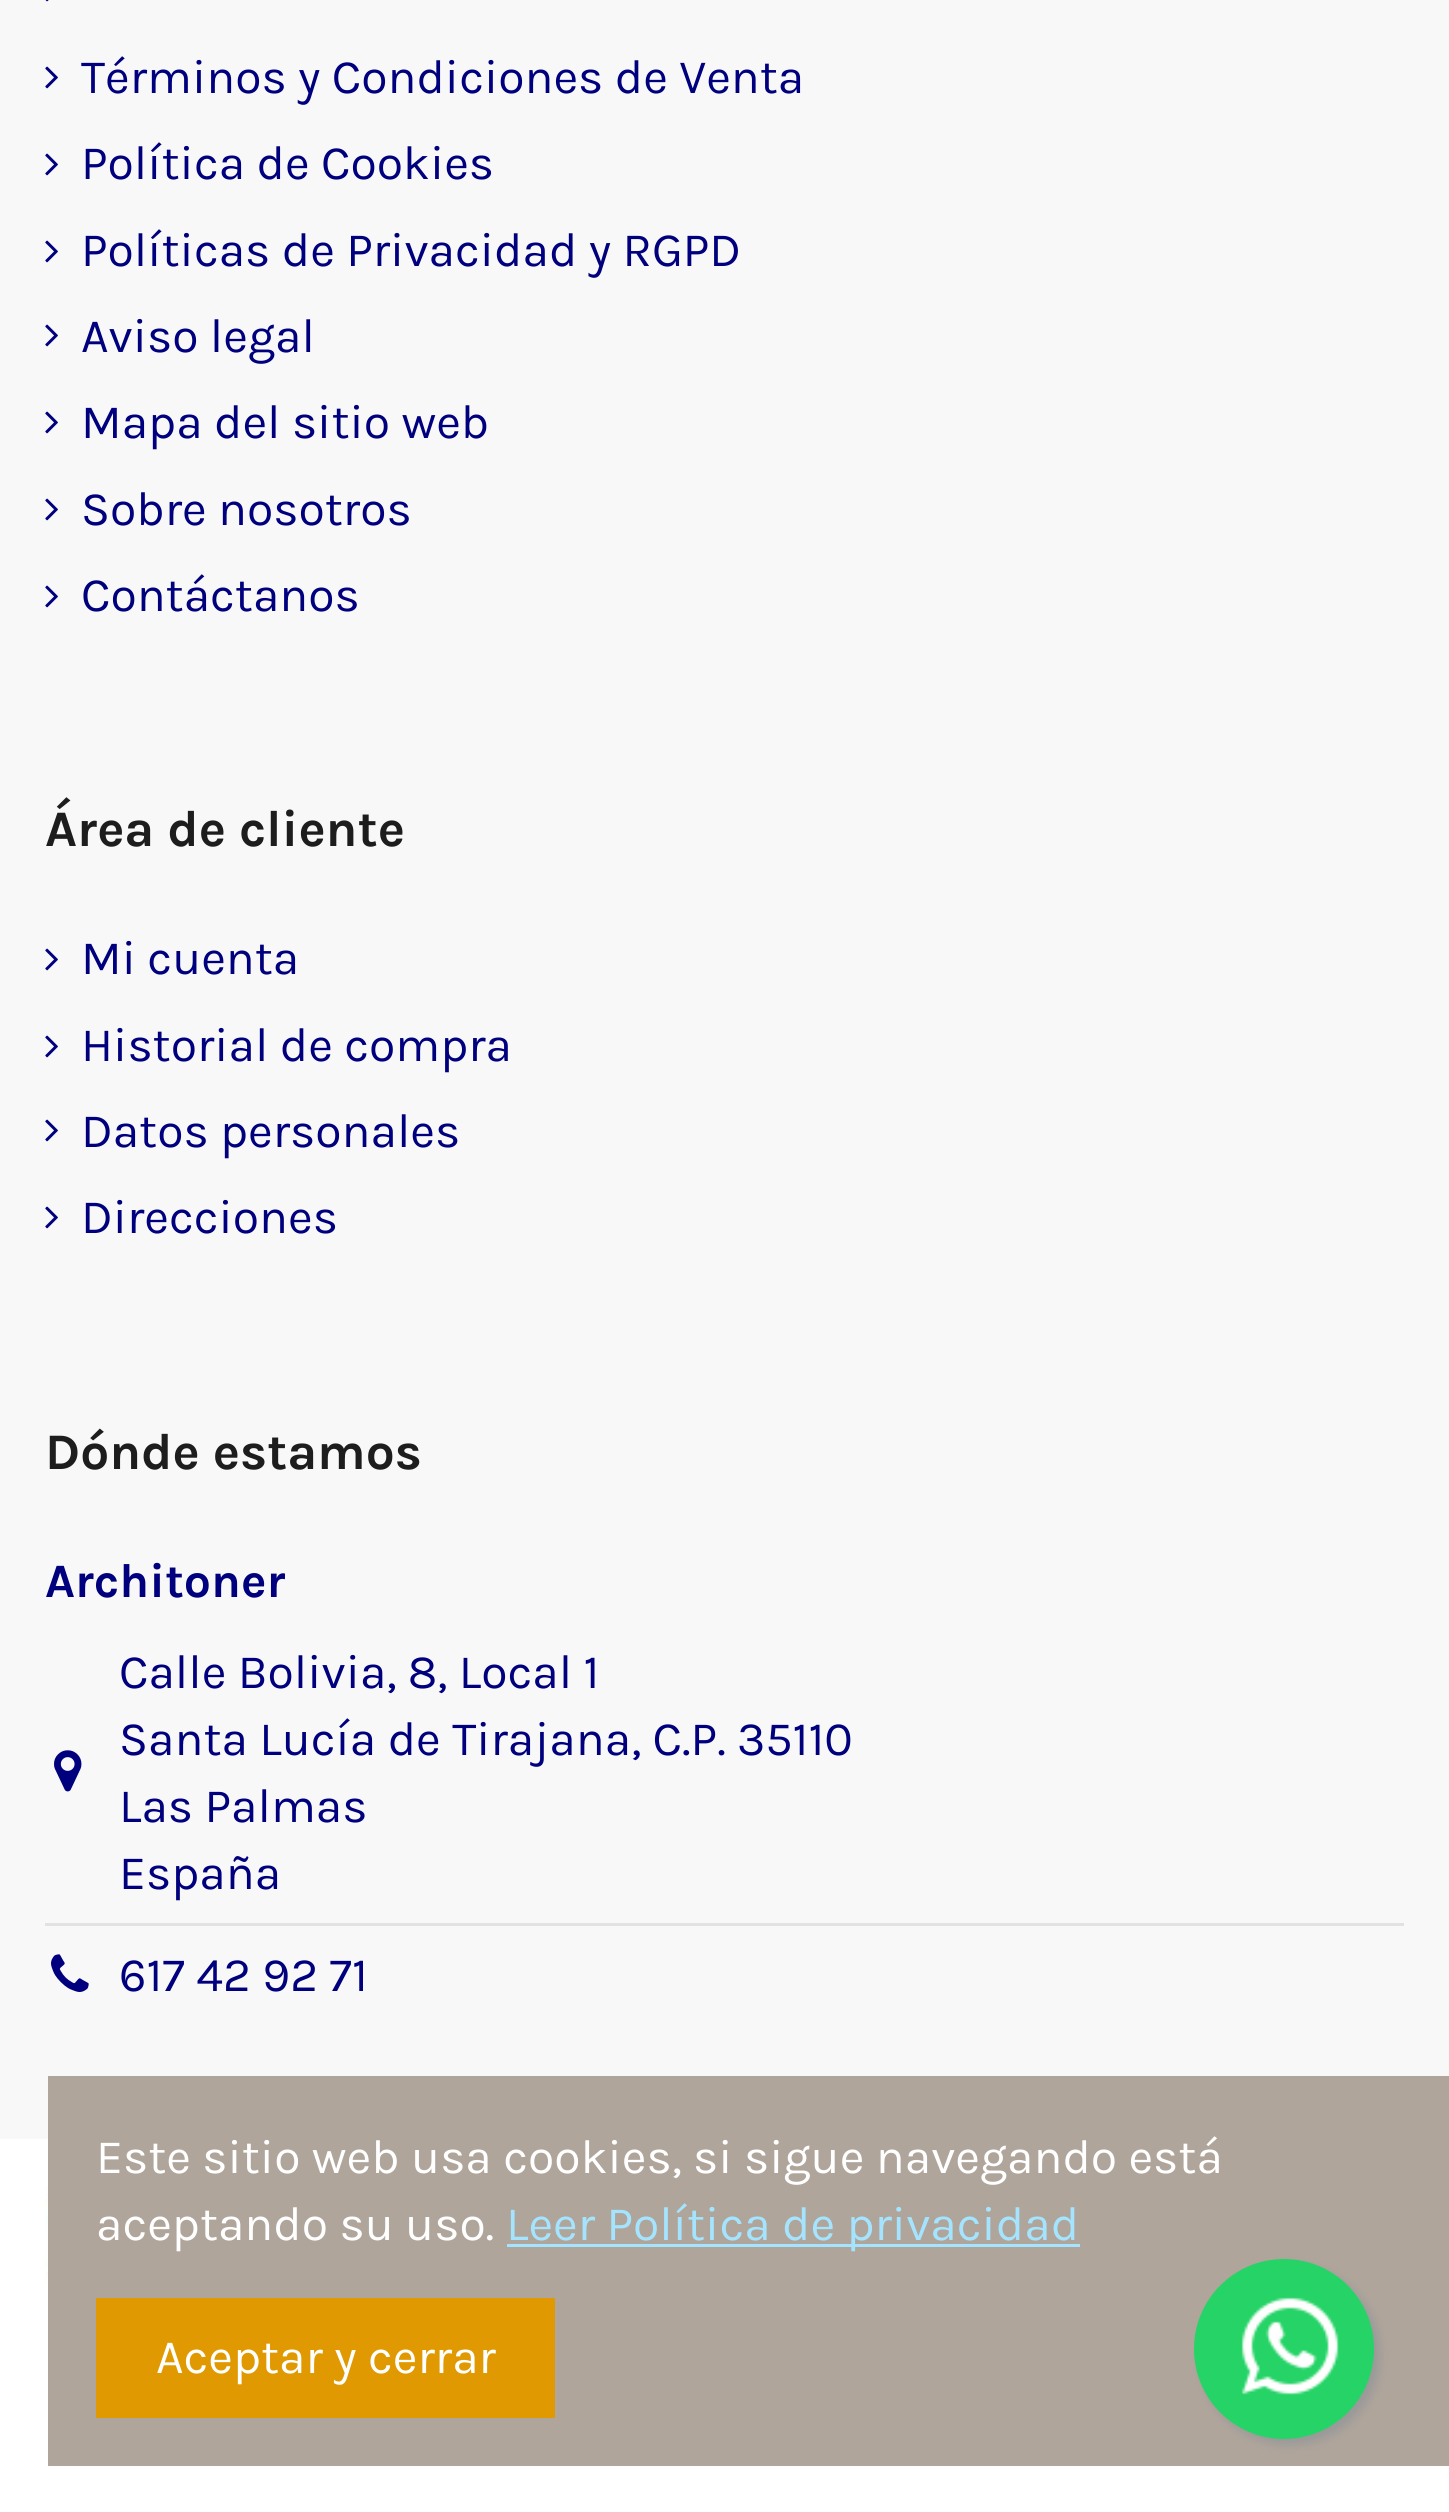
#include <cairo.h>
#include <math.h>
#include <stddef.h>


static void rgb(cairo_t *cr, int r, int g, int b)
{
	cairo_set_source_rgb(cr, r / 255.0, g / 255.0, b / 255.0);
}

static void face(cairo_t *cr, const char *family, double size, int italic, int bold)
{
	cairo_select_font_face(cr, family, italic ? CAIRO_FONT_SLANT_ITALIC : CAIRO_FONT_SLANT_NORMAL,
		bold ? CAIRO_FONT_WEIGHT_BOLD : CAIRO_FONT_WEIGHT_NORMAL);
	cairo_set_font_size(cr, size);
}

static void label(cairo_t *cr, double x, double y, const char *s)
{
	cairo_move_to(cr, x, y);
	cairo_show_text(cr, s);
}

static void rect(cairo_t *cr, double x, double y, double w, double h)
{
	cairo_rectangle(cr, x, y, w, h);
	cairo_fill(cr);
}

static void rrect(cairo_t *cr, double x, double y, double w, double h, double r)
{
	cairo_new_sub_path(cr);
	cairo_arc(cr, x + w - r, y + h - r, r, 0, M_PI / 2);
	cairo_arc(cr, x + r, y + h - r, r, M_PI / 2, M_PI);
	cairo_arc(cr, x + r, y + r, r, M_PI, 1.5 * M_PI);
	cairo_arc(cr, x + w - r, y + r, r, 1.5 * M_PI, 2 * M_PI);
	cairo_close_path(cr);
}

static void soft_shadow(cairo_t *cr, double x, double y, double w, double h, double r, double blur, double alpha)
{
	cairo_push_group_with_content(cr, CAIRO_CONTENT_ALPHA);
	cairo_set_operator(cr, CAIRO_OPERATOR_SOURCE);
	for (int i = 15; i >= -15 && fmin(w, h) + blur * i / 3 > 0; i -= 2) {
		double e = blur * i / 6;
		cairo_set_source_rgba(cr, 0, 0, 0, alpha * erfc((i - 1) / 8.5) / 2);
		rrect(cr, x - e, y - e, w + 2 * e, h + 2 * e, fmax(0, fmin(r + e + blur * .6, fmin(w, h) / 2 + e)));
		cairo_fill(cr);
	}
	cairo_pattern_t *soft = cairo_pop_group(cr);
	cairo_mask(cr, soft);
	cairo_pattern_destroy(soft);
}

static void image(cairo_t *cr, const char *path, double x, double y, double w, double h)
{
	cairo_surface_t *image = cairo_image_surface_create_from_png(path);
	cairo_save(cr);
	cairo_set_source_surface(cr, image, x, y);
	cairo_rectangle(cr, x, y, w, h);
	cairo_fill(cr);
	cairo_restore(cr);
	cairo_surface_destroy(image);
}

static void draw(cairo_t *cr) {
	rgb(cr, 248, 248, 248);
	cairo_paint(cr);
	image(cr, "image0.png", 45, 0, 4, 2);
	image(cr, "image1.png", 45, 66, 13, 23);
	face(cr, "Karla", 48, 0, 0);
	rgb(cr, 0, 0, 126);
	label(cr, 81, 93, "Términos y Condiciones de Venta");
	image(cr, "image1.png", 45, 153, 13, 23);
	label(cr, 81, 179, "Política de Cookies");
	image(cr, "image1.png", 45, 240, 13, 23);
	label(cr, 81, 266, "Políticas de Privacidad y RGPD");
	image(cr, "image1.png", 45, 324, 13, 23);
	label(cr, 81, 352, "Aviso legal");
	image(cr, "image1.png", 45, 411, 13, 23);
	label(cr, 81, 438, "Mapa del sitio web");
	image(cr, "image1.png", 45, 498, 13, 23);
	label(cr, 81, 525, "Sobre nosotros");
	image(cr, "image1.png", 45, 585, 13, 23);
	label(cr, 81, 611, "Contáctanos");
	face(cr, "Karla", 51.25, 0, 1);
	rgb(cr, 29, 29, 29);
	label(cr, 45, 846, "Área de cliente");
	image(cr, "image1.png", 45, 948, 13, 23);
	face(cr, "Karla", 48, 0, 0);
	rgb(cr, 0, 0, 126);
	label(cr, 81, 974, "Mi cuenta");
	image(cr, "image1.png", 45, 1035, 13, 23);
	label(cr, 81, 1061, "Historial de compra");
	image(cr, "image1.png", 45, 1119, 13, 23);
	label(cr, 81, 1147, "Datos personales");
	image(cr, "image1.png", 45, 1206, 13, 23);
	label(cr, 81, 1233, "Direcciones");
	face(cr, "Karla", 51.25, 0, 1);
	rgb(cr, 29, 29, 29);
	label(cr, 45, 1469, "Dónde estamos");
	face(cr, "Karla", 48, 0, 1);
	rgb(cr, 0, 0, 126);
	label(cr, 45, 1597, "Architoner");
	image(cr, "image2.png", 54, 1750, 28, 42);
	face(cr, "Karla", 48, 0, 0);
	label(cr, 119, 1688, "Calle Bolivia, 8, Local 1");
	label(cr, 119, 1755, "Santa Lucía de Tirajana, C.P. 35110");
	label(cr, 119, 1822, "Las Palmas");
	label(cr, 119, 1889, "España");
	rgb(cr, 226, 226, 226);
	rect(cr, 45, 1923, 1359, 3);
	image(cr, "image3.png", 51, 1954, 38, 38);
	rgb(cr, 0, 0, 126);
	label(cr, 119, 1991, "617 42 92 71");
	rgb(cr, 255, 255, 255);
	rect(cr, 0, 2139, 1449, 373);
	image(cr, "image4.png", 45, 2187, 3, 96);
	rgb(cr, 175, 165, 155);
	rect(cr, 48, 2076, 1401, 390);
	rgb(cr, 255, 255, 255);
	label(cr, 96, 2173, "Este sitio web usa cookies, si sigue navegando está");
	label(cr, 96, 2240, "aceptando su uso.");
	rgb(cr, 164, 228, 255);
	rect(cr, 507, 2244, 573, 3);
	label(cr, 506, 2240, "Leer Política de privacidad");
	rgb(cr, 224, 153, 0);
	rect(cr, 96, 2298, 459, 120);
	rgb(cr, 255, 255, 255);
	label(cr, 156, 2373, "Aceptar y cerrar");
	rgb(cr, 153, 153, 153);
	soft_shadow(cr, 1200, 2265, 180, 180, 90, 4.5, 1);
	rgb(cr, 37, 211, 102);
	cairo_arc(cr, 1284, 2349, 90, 0, 2 * M_PI);
	cairo_fill(cr);
	image(cr, "image5.png", 1241, 2297, 98, 98);
}

int main(void) {
	cairo_surface_t *surface = cairo_image_surface_create(CAIRO_FORMAT_RGB24, 1449, 2512);
	cairo_t *cr = cairo_create(surface);
	cairo_font_options_t *options = cairo_font_options_create();
	cairo_font_options_set_hint_metrics(options, CAIRO_HINT_METRICS_OFF);
	cairo_font_options_set_hint_style(options, CAIRO_HINT_STYLE_NONE);
	cairo_set_font_options(cr, options);
	cairo_set_miter_limit(cr, 4);
	draw(cr);
	cairo_surface_write_to_png(surface, "render.png");
	cairo_font_options_destroy(options);
	cairo_destroy(cr);
	cairo_surface_destroy(surface);
	return 0;
}
